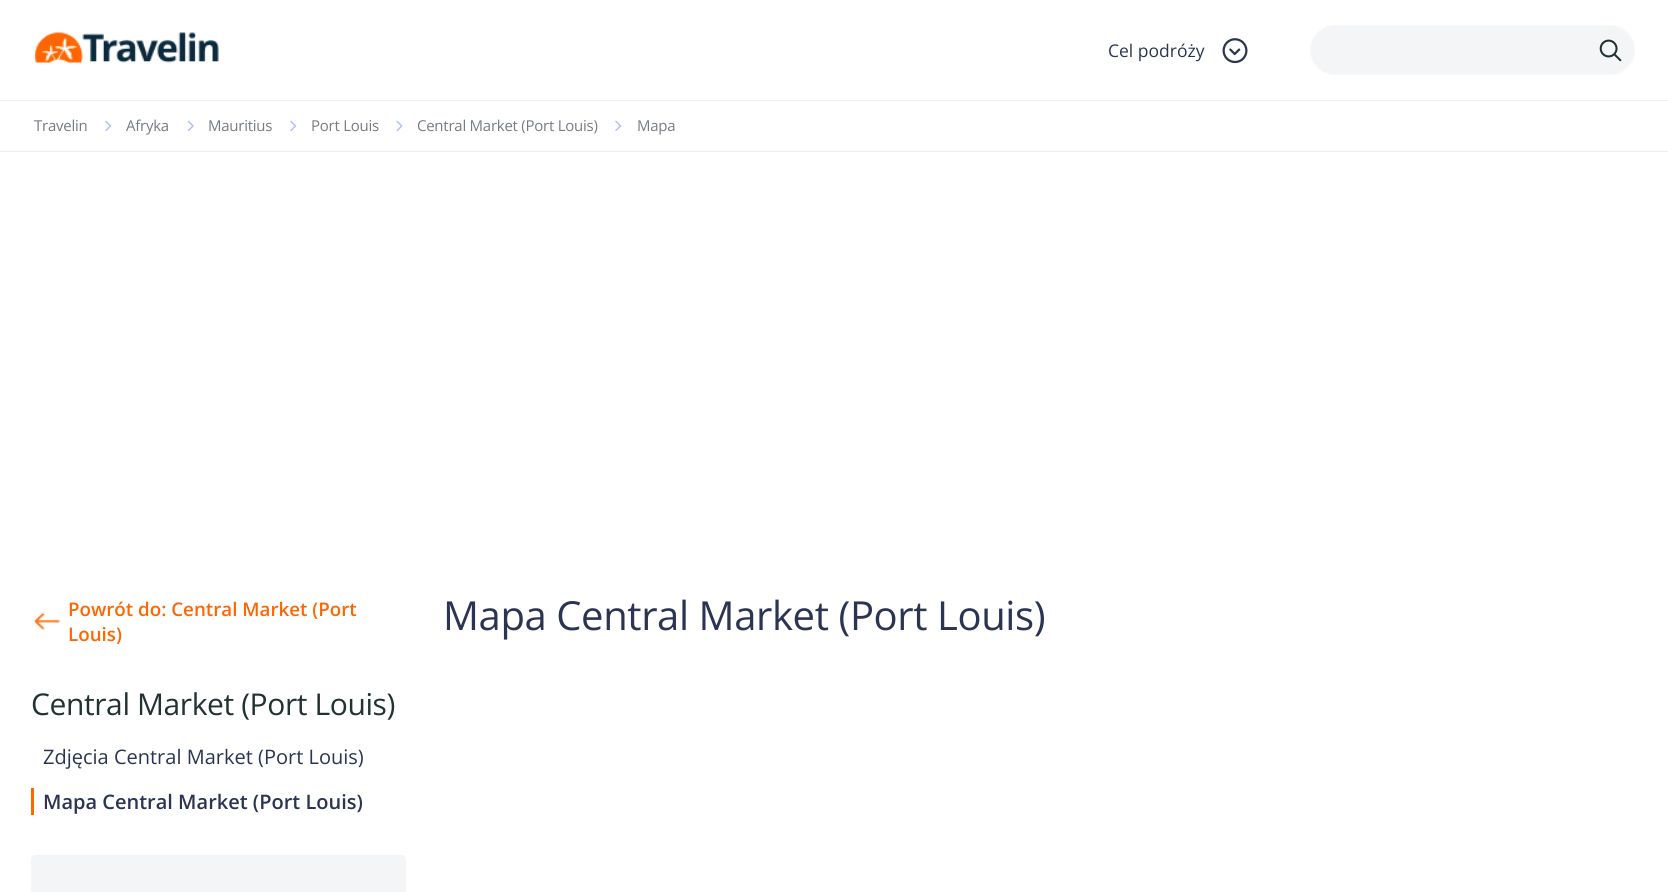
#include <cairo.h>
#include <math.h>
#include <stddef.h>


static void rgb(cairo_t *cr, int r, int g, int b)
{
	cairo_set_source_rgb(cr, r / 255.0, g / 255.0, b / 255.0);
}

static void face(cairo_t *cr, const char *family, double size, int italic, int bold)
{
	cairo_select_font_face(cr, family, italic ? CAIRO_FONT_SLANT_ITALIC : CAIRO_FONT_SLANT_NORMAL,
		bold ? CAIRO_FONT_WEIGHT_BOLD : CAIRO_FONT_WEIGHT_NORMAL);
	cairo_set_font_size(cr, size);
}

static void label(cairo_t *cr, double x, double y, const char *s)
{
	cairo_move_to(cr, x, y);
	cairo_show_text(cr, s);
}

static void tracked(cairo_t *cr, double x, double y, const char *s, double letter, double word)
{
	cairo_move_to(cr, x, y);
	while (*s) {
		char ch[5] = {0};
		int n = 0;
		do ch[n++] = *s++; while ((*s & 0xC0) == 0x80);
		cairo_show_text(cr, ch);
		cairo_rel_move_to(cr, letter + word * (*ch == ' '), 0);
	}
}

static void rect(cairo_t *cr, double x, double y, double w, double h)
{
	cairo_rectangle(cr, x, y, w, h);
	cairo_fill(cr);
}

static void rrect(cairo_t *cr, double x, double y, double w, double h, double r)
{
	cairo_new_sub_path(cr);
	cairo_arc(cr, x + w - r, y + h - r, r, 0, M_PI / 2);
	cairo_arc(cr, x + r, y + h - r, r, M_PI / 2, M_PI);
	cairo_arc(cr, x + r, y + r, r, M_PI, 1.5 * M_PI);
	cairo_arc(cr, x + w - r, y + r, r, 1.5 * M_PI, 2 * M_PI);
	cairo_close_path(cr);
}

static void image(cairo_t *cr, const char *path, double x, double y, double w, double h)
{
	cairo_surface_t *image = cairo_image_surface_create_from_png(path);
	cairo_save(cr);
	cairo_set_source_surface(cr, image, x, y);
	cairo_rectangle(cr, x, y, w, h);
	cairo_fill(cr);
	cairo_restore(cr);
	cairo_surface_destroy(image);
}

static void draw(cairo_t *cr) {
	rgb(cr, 255, 255, 255);
	cairo_paint(cr);
	rgb(cr, 238, 238, 238);
	rect(cr, 0, 100, 1668, 1);
	image(cr, "image0.png", 34, 32, 185, 31);
	face(cr, "Open Sans", 17.5, 0, 0);
	rgb(cr, 43, 53, 82);
	label(cr, 1108, 57, "Cel podróży");
	image(cr, "image1.png", 1222, 38, 26, 26);
	rgb(cr, 244, 245, 246);
	rrect(cr, 1310, 25, 325, 50, 25);
	cairo_fill(cr);
	rrect(cr, 1310.5, 25.5, 324, 49, 24.5);
	cairo_set_source_rgba(cr, 1, 1, 1, 0.3);
	cairo_set_line_width(cr, 1);
	cairo_stroke(cr);
	image(cr, "image2.png", 1599, 39, 23, 23);
	rgb(cr, 238, 238, 238);
	rect(cr, 0, 151, 1668, 1);
	face(cr, "Open Sans", 15, 0, 0);
	rgb(cr, 118, 124, 130);
	tracked(cr, 34, 131, "Travelin", -0.25, 0);
	image(cr, "image3.png", 105, 120, 7, 11);
	tracked(cr, 126, 131, "Afryka", -0.25, 0);
	image(cr, "image4.png", 187, 120, 7, 12);
	tracked(cr, 208, 131, "Mauritius", -0.25, 0);
	image(cr, "image3.png", 290, 120, 7, 11);
	tracked(cr, 311, 131, "Port Louis", -0.25, 0);
	image(cr, "image5.png", 396, 120, 7, 12);
	tracked(cr, 417, 131, "Central Market (Port Louis)", -0.25, 0);
	image(cr, "image3.png", 615, 120, 7, 11);
	tracked(cr, 637, 131, "Mapa", -0.25, 0);
	image(cr, "image6.png", 33, 612, 28, 18);
	face(cr, "Open Sans SemiBold", 18.75, 0, 0);
	rgb(cr, 255, 102, 0);
	label(cr, 68, 616, "Powrót do: Central Market (Port");
	label(cr, 68, 641, "Louis)");
	face(cr, "Open Sans", 30, 0, 0);
	rgb(cr, 34, 50, 50);
	tracked(cr, 31, 715, "Central Market (Port Louis)", -0.4, 0);
	face(cr, "Open Sans", 20, 0, 0);
	rgb(cr, 43, 53, 82);
	label(cr, 43, 764, "Zdjęcia Central Market (Port Louis)");
	rgb(cr, 255, 102, 0);
	rect(cr, 31, 788, 3, 27);
	face(cr, "Open Sans SemiBold", 20, 0, 0);
	rgb(cr, 43, 53, 82);
	label(cr, 43, 809, "Mapa Central Market (Port Louis)");
	rgb(cr, 244, 245, 246);
	rrect(cr, 31, 855, 375, 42, 5);
	cairo_fill(cr);
	face(cr, "Open Sans", 40, 0, 0);
	rgb(cr, 43, 53, 82);
	tracked(cr, 443, 630, "Mapa Central Market (Port Louis)", -0.4, 0);
}

int main(void) {
	cairo_surface_t *surface = cairo_image_surface_create(CAIRO_FORMAT_RGB24, 1668, 892);
	cairo_t *cr = cairo_create(surface);
	cairo_font_options_t *options = cairo_font_options_create();
	cairo_font_options_set_hint_metrics(options, CAIRO_HINT_METRICS_OFF);
	cairo_font_options_set_hint_style(options, CAIRO_HINT_STYLE_NONE);
	cairo_set_font_options(cr, options);
	cairo_set_miter_limit(cr, 4);
	draw(cr);
	cairo_surface_write_to_png(surface, "render.png");
	cairo_font_options_destroy(options);
	cairo_destroy(cr);
	cairo_surface_destroy(surface);
	return 0;
}
